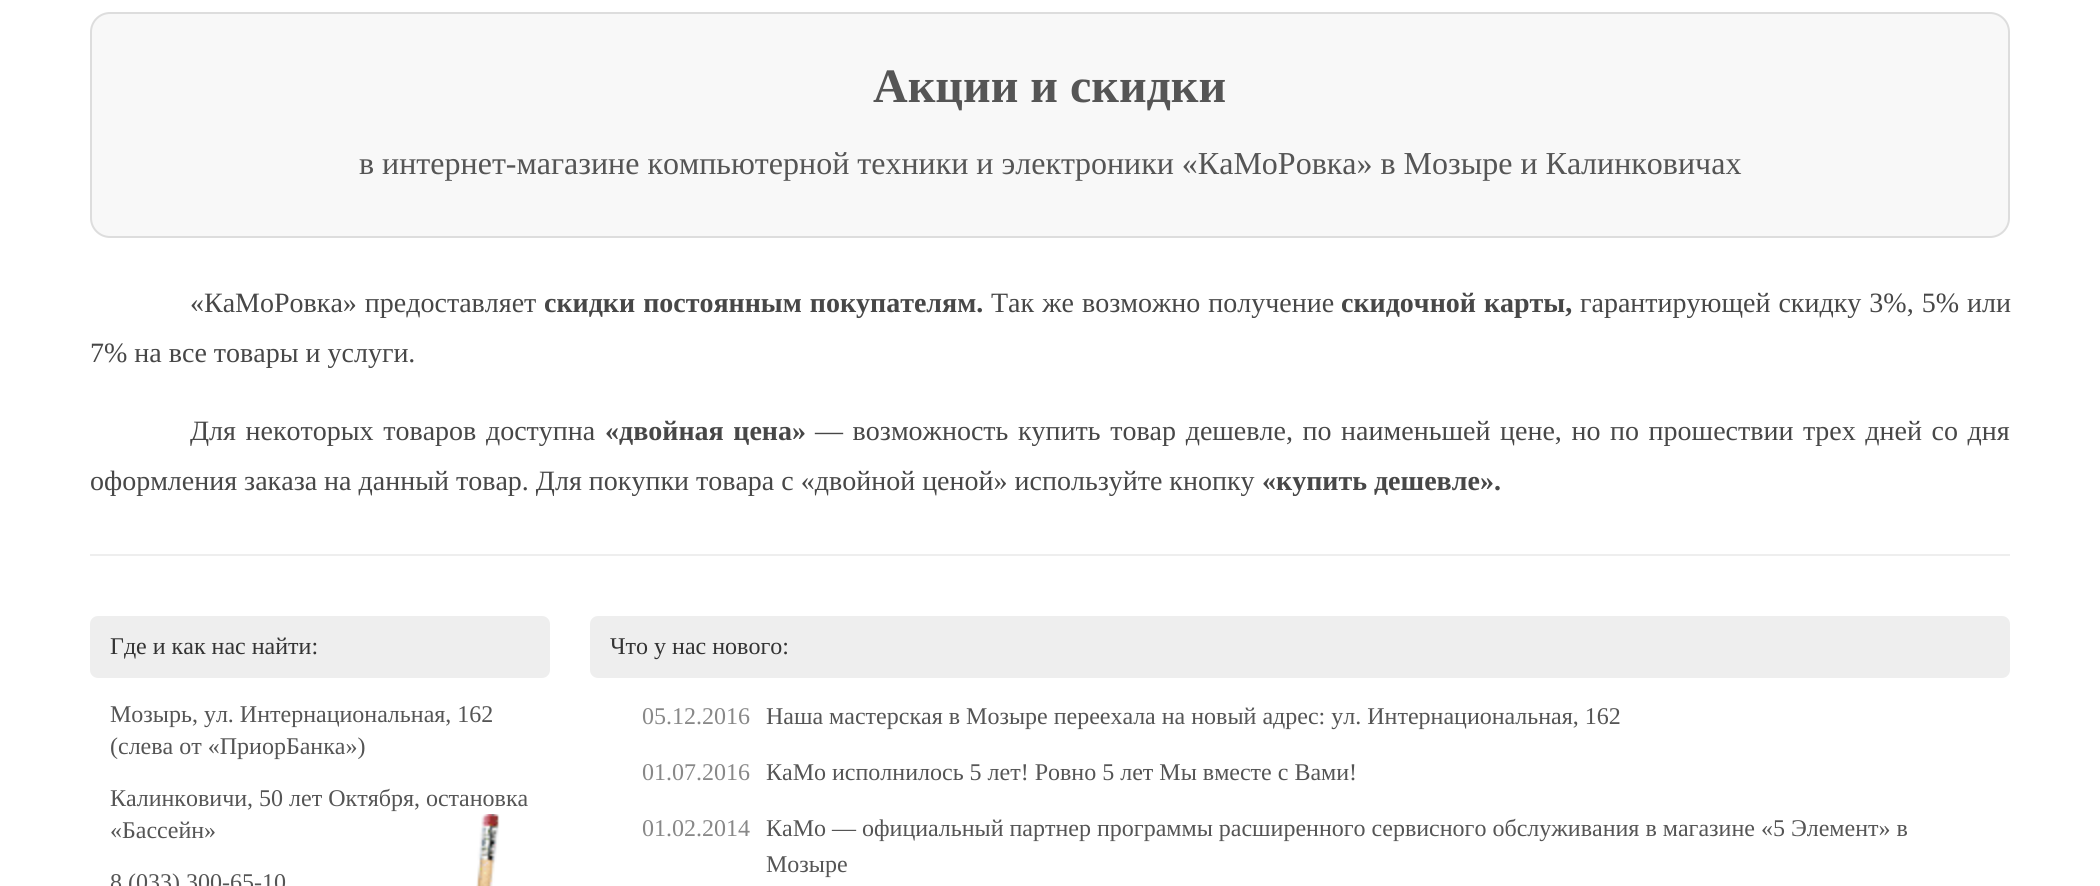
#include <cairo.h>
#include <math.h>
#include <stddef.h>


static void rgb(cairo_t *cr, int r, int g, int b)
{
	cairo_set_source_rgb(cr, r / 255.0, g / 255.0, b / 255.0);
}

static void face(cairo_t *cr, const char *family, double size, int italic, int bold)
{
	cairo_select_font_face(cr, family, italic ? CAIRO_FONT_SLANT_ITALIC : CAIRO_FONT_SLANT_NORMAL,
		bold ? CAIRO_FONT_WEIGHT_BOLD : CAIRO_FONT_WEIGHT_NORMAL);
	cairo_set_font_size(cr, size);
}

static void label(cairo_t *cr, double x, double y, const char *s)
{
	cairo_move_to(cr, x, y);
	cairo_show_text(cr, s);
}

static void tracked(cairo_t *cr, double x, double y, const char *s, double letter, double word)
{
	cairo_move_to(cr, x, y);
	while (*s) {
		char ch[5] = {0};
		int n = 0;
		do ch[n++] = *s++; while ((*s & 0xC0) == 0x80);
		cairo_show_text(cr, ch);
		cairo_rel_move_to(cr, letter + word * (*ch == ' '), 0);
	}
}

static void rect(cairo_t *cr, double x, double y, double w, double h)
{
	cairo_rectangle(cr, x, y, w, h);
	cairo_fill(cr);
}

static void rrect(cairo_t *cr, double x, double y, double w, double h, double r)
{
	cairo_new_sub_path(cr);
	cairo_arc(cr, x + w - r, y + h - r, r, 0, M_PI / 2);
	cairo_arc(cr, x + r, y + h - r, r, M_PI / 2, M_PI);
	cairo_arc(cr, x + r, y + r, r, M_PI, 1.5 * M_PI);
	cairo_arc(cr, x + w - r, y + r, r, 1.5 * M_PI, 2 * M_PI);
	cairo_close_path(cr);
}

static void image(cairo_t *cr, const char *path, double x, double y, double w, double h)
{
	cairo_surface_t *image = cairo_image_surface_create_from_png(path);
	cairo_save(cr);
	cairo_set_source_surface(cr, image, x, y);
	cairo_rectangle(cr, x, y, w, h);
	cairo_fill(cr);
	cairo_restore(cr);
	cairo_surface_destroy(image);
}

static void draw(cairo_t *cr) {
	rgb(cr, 255, 255, 255);
	cairo_paint(cr);
	rgb(cr, 248, 248, 248);
	rrect(cr, 91, 13, 1918, 224, 19);
	cairo_fill_preserve(cr);
	rgb(cr, 221, 221, 221);
	cairo_stroke(cr);
	face(cr, "Liberation Serif", 48, 0, 1);
	rgb(cr, 85, 85, 85);
	label(cr, 873, 102, "Акции и скидки");
	face(cr, "Liberation Serif", 32, 0, 0);
	label(cr, 359, 174, "в интернет-магазине компьютерной техники и электроники «КаМоРовка» в Мозыре и Калинковичах");
	face(cr, "Liberation Serif", 28, 0, 0);
	rgb(cr, 71, 71, 71);
	tracked(cr, 190, 312, "«КаМоРовка» предоставляет", 0, 1);
	face(cr, "Liberation Serif", 28, 0, 1);
	tracked(cr, 544, 312, "скидки постоянным покупателям.", 0, 1);
	face(cr, "Liberation Serif", 28, 0, 0);
	tracked(cr, 991, 312, "Так же возможно получение", 0, 1);
	face(cr, "Liberation Serif", 28, 0, 1);
	tracked(cr, 1341, 312, "скидочной карты,", 0, 1);
	face(cr, "Liberation Serif", 28, 0, 0);
	tracked(cr, 1580, 312, "гарантирующей скидку 3%, 5% или", 0, 1);
	label(cr, 90, 362, "7% на все товары и услуги.");
	tracked(cr, 190, 440, "Для некоторых товаров доступна", 0, 2.6);
	face(cr, "Liberation Serif", 28, 0, 1);
	tracked(cr, 605, 440, "«двойная цена»", 0, 2.6);
	face(cr, "Liberation Serif", 28, 0, 0);
	tracked(cr, 815, 440, "— возможность купить товар дешевле, по наименьшей цене, но по прошествии трех дней со дня", 0, 2.6);
	label(cr, 90, 490, "оформления заказа на данный товар. Для покупки товара с «двойной ценой» используйте кнопку");
	face(cr, "Liberation Serif", 28, 0, 1);
	label(cr, 1262, 490, "«купить дешевле».");
	rgb(cr, 238, 238, 238);
	rect(cr, 90, 554, 1920, 2);
	rrect(cr, 90, 616, 460, 62, 8);
	cairo_fill(cr);
	face(cr, "Liberation Serif", 24, 0, 0);
	rgb(cr, 51, 51, 51);
	label(cr, 110, 654, "Где и как нас найти:");
	rgb(cr, 85, 85, 85);
	label(cr, 110, 722, "Мозырь, ул. Интернациональная, 162");
	label(cr, 110, 754, "(слева от «ПриорБанка»)");
	label(cr, 110, 806, "Калинковичи, 50 лет Октября, остановка");
	label(cr, 110, 838, "«Бассейн»");
	label(cr, 110, 890, "8 (033) 300-65-10");
	rgb(cr, 238, 238, 238);
	rrect(cr, 590, 616, 1420, 62, 8);
	cairo_fill(cr);
	rgb(cr, 51, 51, 51);
	label(cr, 610, 654, "Что у нас нового:");
	rgb(cr, 136, 136, 136);
	label(cr, 642, 724, "05.12.2016");
	rgb(cr, 85, 85, 85);
	label(cr, 766, 724, "Наша мастерская в Мозыре переехала на новый адрес: ул. Интернациональная, 162");
	rgb(cr, 136, 136, 136);
	label(cr, 642, 780, "01.07.2016");
	rgb(cr, 85, 85, 85);
	label(cr, 766, 780, "КаМо исполнилось 5 лет! Ровно 5 лет Мы вместе с Вами!");
	rgb(cr, 136, 136, 136);
	label(cr, 642, 836, "01.02.2014");
	rgb(cr, 85, 85, 85);
	label(cr, 766, 836, "КаМо — официальный партнер программы расширенного сервисного обслуживания в магазине «5 Элемент» в");
	label(cr, 766, 872, "Мозыре");
	image(cr, "image0.png", 476, 814, 24, 72);
}

int main(void) {
	cairo_surface_t *surface = cairo_image_surface_create(CAIRO_FORMAT_RGB24, 2100, 886);
	cairo_t *cr = cairo_create(surface);
	cairo_font_options_t *options = cairo_font_options_create();
	cairo_font_options_set_hint_metrics(options, CAIRO_HINT_METRICS_OFF);
	cairo_font_options_set_hint_style(options, CAIRO_HINT_STYLE_NONE);
	cairo_set_font_options(cr, options);
	cairo_set_miter_limit(cr, 4);
	draw(cr);
	cairo_surface_write_to_png(surface, "render.png");
	cairo_font_options_destroy(options);
	cairo_destroy(cr);
	cairo_surface_destroy(surface);
	return 0;
}
